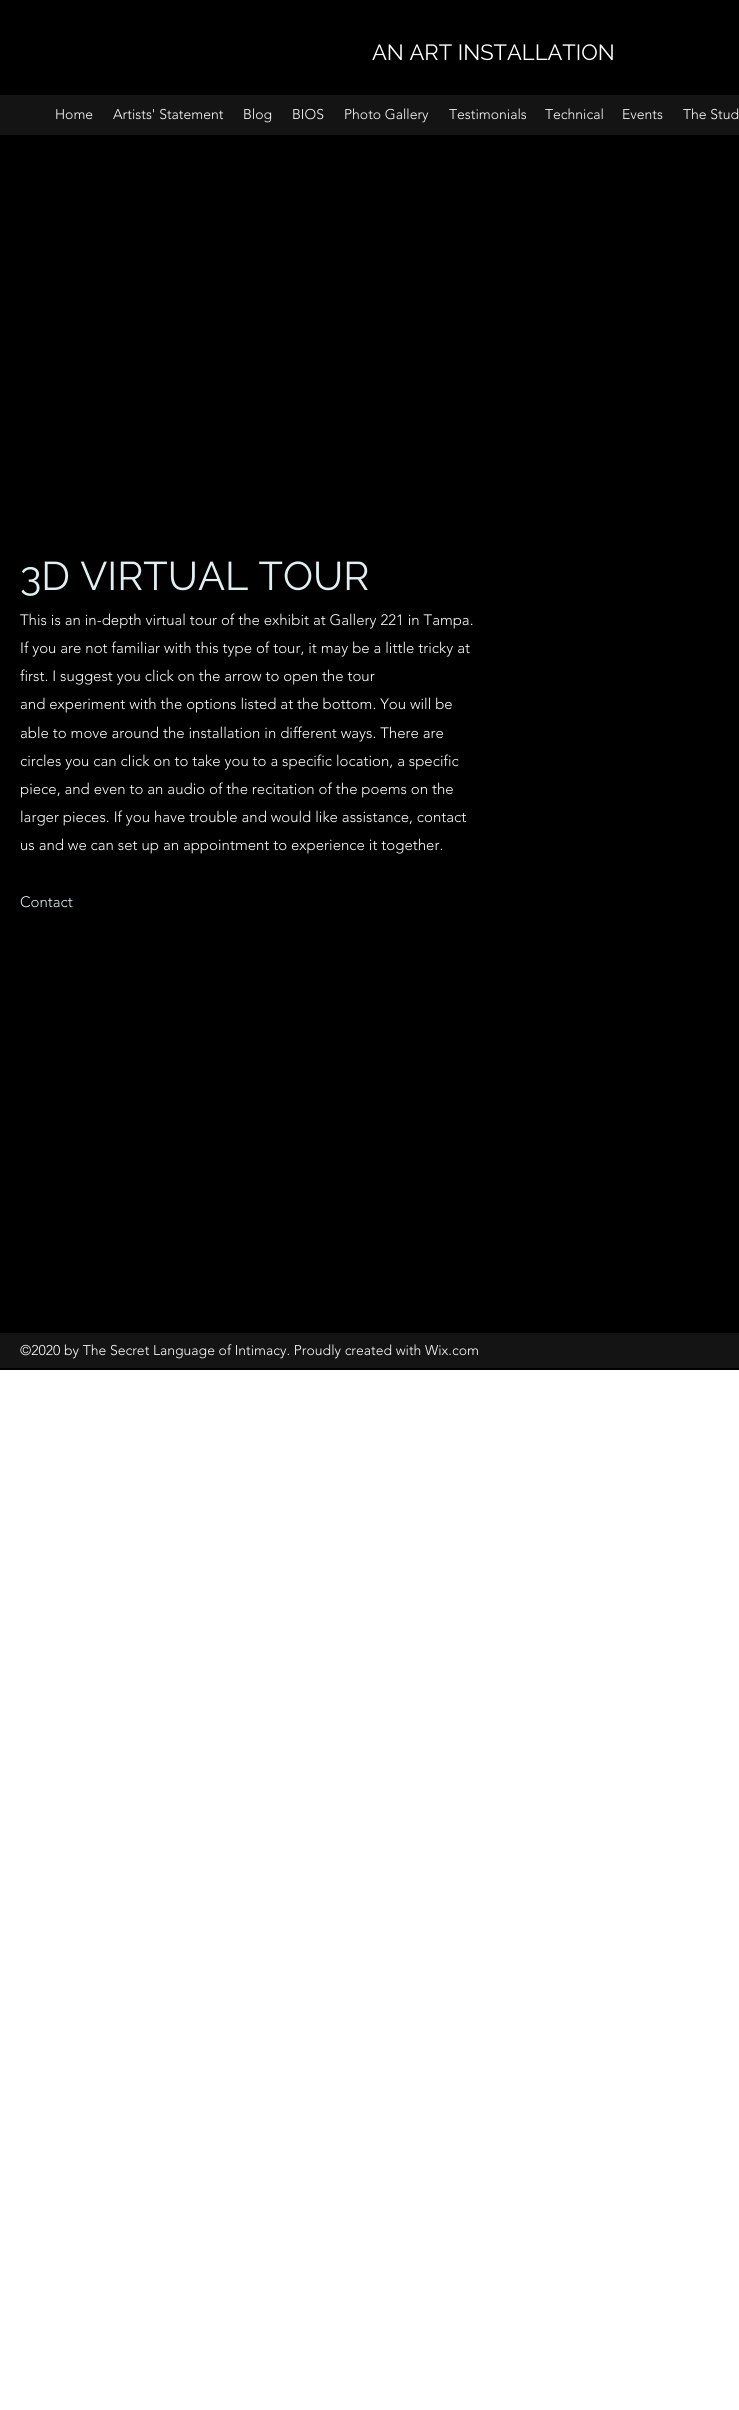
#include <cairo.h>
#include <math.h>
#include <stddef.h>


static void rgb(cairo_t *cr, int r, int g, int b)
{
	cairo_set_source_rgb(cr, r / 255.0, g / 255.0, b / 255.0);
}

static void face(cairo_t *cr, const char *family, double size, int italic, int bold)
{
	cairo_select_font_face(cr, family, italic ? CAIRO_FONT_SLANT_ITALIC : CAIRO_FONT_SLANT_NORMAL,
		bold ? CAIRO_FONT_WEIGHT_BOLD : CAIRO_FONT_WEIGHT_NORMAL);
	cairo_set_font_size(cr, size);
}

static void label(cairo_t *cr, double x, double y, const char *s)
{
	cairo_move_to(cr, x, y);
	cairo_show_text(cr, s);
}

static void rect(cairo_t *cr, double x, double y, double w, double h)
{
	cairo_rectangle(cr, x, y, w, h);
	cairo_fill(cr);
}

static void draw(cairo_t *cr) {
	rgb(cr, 255, 255, 255);
	cairo_paint(cr);
	rgb(cr, 0, 0, 0);
	rect(cr, 0, 0, 739, 95);
	face(cr, "Raleway", 22, 0, 0);
	rgb(cr, 255, 255, 255);
	label(cr, 372, 60, "AN ART INSTALLATION");
	rgb(cr, 20, 20, 20);
	rect(cr, 0, 95, 739, 40);
	face(cr, "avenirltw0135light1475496 Light", 14, 0, 0);
	rgb(cr, 255, 255, 255);
	label(cr, 55, 119, "Home");
	label(cr, 113, 119, "Artists' Statement");
	label(cr, 243, 119, "Blog");
	label(cr, 292, 119, "BIOS");
	label(cr, 344, 119, "Photo Gallery");
	label(cr, 449, 119, "Testimonials");
	label(cr, 545, 119, "Technical");
	label(cr, 622, 119, "Events");
	label(cr, 683, 119, "The Stud");
	rgb(cr, 0, 0, 0);
	rect(cr, 0, 135, 739, 1235);
	face(cr, "Raleway", 40, 0, 0);
	rgb(cr, 225, 239, 242);
	label(cr, 20, 590, "3D VIRTUAL TOUR");
	face(cr, "avenirltw0135light1475496 Light", 15, 0, 0);
	rgb(cr, 255, 255, 255);
	label(cr, 20, 625, "This is an in-depth virtual tour of the exhibit at Gallery 221 in Tampa.");
	label(cr, 20, 653, "If you are not familiar with this type of tour, it may be a little tricky at");
	label(cr, 20, 681, "first. I suggest you click on the arrow to open the tour");
	label(cr, 20, 709, "and experiment with the options listed at the bottom. You will be");
	label(cr, 20, 738, "able to move around the installation in different ways. There are");
	label(cr, 20, 766, "circles you can click on to take you to a specific location, a specific");
	label(cr, 20, 794, "piece, and even to an audio of the recitation of the poems on the");
	label(cr, 20, 822, "larger pieces. If you have trouble and would like assistance, contact");
	label(cr, 20, 850, "us and we can set up an appointment to experience it together.");
	rgb(cr, 225, 239, 242);
	label(cr, 20, 907, "Contact");
	rgb(cr, 20, 20, 20);
	rect(cr, 0, 1333, 739, 35);
	face(cr, "avenirltw0135light1475496 Light", 14, 0, 0);
	rgb(cr, 255, 255, 255);
	label(cr, 20, 1355, "©2020 by The Secret Language of Intimacy. Proudly created with Wix.com");
}

int main(void) {
	cairo_surface_t *surface = cairo_image_surface_create(CAIRO_FORMAT_RGB24, 739, 2410);
	cairo_t *cr = cairo_create(surface);
	cairo_font_options_t *options = cairo_font_options_create();
	cairo_font_options_set_hint_metrics(options, CAIRO_HINT_METRICS_OFF);
	cairo_font_options_set_hint_style(options, CAIRO_HINT_STYLE_NONE);
	cairo_set_font_options(cr, options);
	cairo_set_miter_limit(cr, 4);
	draw(cr);
	cairo_surface_write_to_png(surface, "render.png");
	cairo_font_options_destroy(options);
	cairo_destroy(cr);
	cairo_surface_destroy(surface);
	return 0;
}
